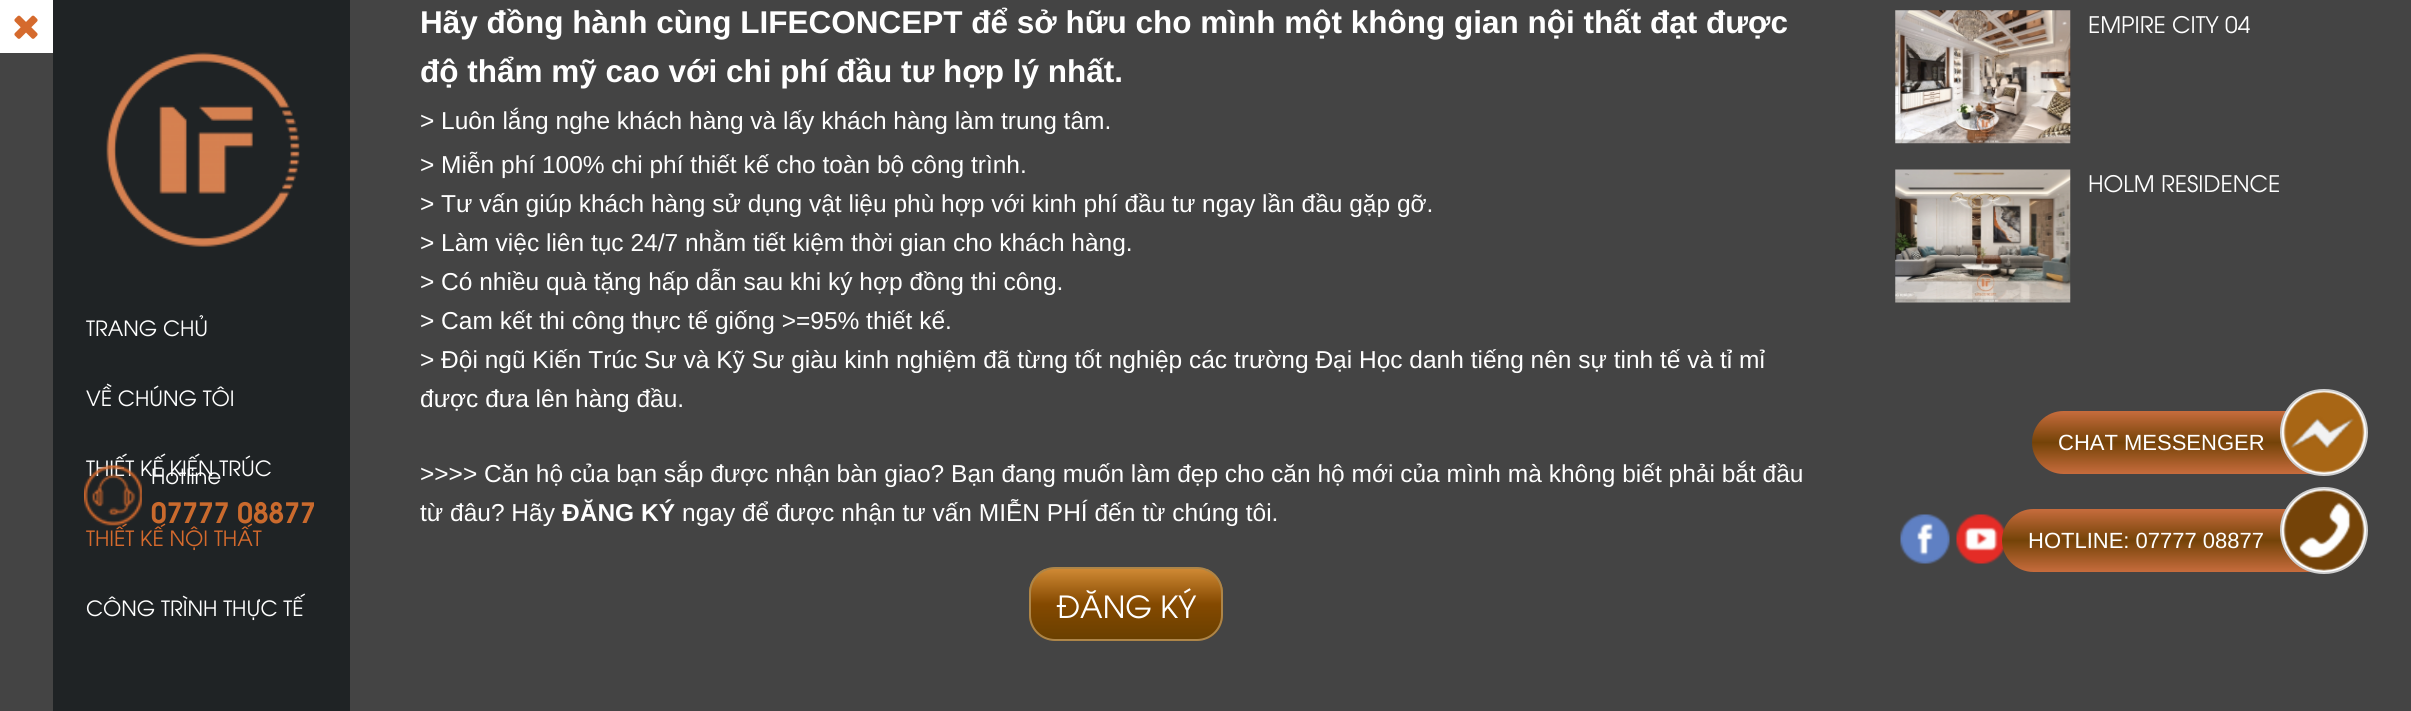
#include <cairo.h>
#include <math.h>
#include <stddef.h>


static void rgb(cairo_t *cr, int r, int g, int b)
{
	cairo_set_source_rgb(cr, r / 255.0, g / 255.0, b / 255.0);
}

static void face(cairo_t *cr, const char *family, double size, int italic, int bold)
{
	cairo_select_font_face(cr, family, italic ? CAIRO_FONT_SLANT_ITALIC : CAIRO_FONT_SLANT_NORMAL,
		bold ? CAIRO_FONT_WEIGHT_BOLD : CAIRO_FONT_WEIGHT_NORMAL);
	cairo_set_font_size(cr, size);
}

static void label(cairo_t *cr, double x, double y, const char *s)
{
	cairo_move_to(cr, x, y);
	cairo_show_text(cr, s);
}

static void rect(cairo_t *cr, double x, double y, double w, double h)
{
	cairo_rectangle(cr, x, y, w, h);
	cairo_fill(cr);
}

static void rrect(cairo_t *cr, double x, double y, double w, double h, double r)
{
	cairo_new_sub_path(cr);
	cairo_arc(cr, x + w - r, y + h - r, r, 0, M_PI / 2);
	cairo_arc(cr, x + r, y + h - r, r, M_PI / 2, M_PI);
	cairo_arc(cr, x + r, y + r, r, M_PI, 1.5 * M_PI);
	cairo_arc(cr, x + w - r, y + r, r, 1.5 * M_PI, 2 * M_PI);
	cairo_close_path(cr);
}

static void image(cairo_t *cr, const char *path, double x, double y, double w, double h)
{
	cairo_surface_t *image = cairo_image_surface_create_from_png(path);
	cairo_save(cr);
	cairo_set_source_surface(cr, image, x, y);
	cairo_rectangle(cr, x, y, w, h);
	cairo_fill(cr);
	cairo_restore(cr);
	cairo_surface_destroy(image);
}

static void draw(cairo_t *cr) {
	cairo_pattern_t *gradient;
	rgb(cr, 68, 68, 68);
	cairo_paint(cr);
	rgb(cr, 255, 255, 255);
	rect(cr, 0, 0, 53, 53);
	image(cr, "image0.png", 14, 15, 24, 24);
	rgb(cr, 31, 35, 37);
	rect(cr, 53, 0, 297, 711);
	image(cr, "image1.png", 106, 52, 194, 195);
	face(cr, "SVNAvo", 21, 0, 0);
	rgb(cr, 255, 255, 255);
	label(cr, 86, 336, "TRANG CHỦ");
	label(cr, 86, 406, "VỀ CHÚNG TÔI");
	label(cr, 86, 476, "THIẾT KẾ KIẾN TRÚC");
	rgb(cr, 213, 106, 45);
	label(cr, 86, 546, "THIẾT KẾ NỘI THẤT");
	rgb(cr, 255, 255, 255);
	label(cr, 86, 616, "CÔNG TRÌNH THỰC TẾ");
	image(cr, "image2.png", 84, 465, 58, 61);
	label(cr, 151, 484, "Hotline");
	face(cr, "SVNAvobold", 28, 0, 1);
	rgb(cr, 202, 106, 45);
	label(cr, 151, 523, "07777 08877");
	image(cr, "image3.png", 1900, 514, 50, 50);
	image(cr, "image4.png", 1956, 514, 49, 50);
	face(cr, "Liberation Sans", 31.5, 0, 1);
	rgb(cr, 255, 255, 255);
	label(cr, 420, 33, "Hãy đồng hành cùng LIFECONCEPT để sở hữu cho mình một không gian nội thất đạt được");
	label(cr, 420, 82, "độ thẩm mỹ cao với chi phí đầu tư hợp lý nhất.");
	face(cr, "Liberation Sans", 24.5, 0, 0);
	label(cr, 420, 129, "> Luôn lắng nghe khách hàng và lấy khách hàng làm trung tâm.");
	label(cr, 420, 173, "> Miễn phí 100% chi phí thiết kế cho toàn bộ công trình.");
	label(cr, 420, 212, "> Tư vấn giúp khách hàng sử dụng vật liệu phù hợp với kinh phí đầu tư ngay lần đầu gặp gỡ.");
	label(cr, 420, 251, "> Làm việc liên tục 24/7 nhằm tiết kiệm thời gian cho khách hàng.");
	label(cr, 420, 290, "> Có nhiều quà tặng hấp dẫn sau khi ký hợp đồng thi công.");
	label(cr, 420, 329, "> Cam kết thi công thực tế giống >=95% thiết kế.");
	label(cr, 420, 368, "> Đội ngũ Kiến Trúc Sư và Kỹ Sư giàu kinh nghiệm đã từng tốt nghiệp các trường Đại Học danh tiếng nên sự tinh tế và tỉ mỉ");
	label(cr, 420, 407, "được đưa lên hàng đầu.");
	label(cr, 420, 482, ">>>> Căn hộ của bạn sắp được nhận bàn giao? Bạn đang muốn làm đẹp cho căn hộ mới của mình mà không biết phải bắt đầu");
	label(cr, 420, 521, "từ đâu? Hãy");
	face(cr, "Liberation Sans", 24.5, 0, 1);
	label(cr, 562, 521, "ĐĂNG KÝ");
	face(cr, "Liberation Sans", 24.5, 0, 0);
	label(cr, 682, 521, "ngay để được nhận tư vấn MIỄN PHÍ đến từ chúng tôi.");
	cairo_save(cr);
	rrect(cr, 1029, 567, 194, 74, 26);
	cairo_clip(cr);
	gradient = cairo_pattern_create_linear(1126, 569, 1126, 639);
	cairo_pattern_add_color_stop_rgba(gradient, 0, 0.812, 0.537, 0.204, 1);
	cairo_pattern_add_color_stop_rgba(gradient, 0.5, 0.518, 0.286, 0, 1);
	cairo_pattern_add_color_stop_rgba(gradient, 1, 0.416, 0.251, 0, 1);
	cairo_set_source(cr, gradient);
	cairo_pattern_destroy(gradient);
	rect(cr, 1029, 569, 194, 70);
	cairo_restore(cr);
	rrect(cr, 1030, 568, 192, 72, 25);
	rgb(cr, 173, 133, 72);
	cairo_stroke(cr);
	face(cr, "SVNAvo", 30.5, 0, 0);
	rgb(cr, 255, 255, 255);
	label(cr, 1056, 618, "ĐĂNG KÝ");
	image(cr, "image5.png", 1895, 10, 176, 134);
	face(cr, "SVNAvo", 22.75, 0, 0);
	label(cr, 2088, 33, "EMPIRE CITY 04");
	image(cr, "image6.png", 1895, 169, 176, 134);
	label(cr, 2088, 192, "HOLM RESIDENCE");
	gradient = cairo_pattern_create_linear(2195, 411, 2195, 474);
	cairo_pattern_add_color_stop_rgba(gradient, 0, 0.78, 0.424, 0.239, 1);
	cairo_pattern_add_color_stop_rgba(gradient, 0.5, 0.455, 0.263, 0.031, 1);
	cairo_pattern_add_color_stop_rgba(gradient, 1, 0.78, 0.424, 0.239, 1);
	cairo_set_source(cr, gradient);
	cairo_pattern_destroy(gradient);
	rrect(cr, 2032, 411, 327, 63, 31.5);
	cairo_fill(cr);
	rgb(cr, 255, 255, 255);
	rrect(cr, 2281, 390, 86, 85, 42.5);
	cairo_fill_preserve(cr);
	rgb(cr, 205, 205, 205);
	cairo_stroke(cr);
	face(cr, "Liberation Sans", 22, 0, 0);
	rgb(cr, 255, 255, 255);
	label(cr, 2058, 450, "CHAT MESSENGER");
	image(cr, "image7.png", 2283, 391, 82, 82);
	gradient = cairo_pattern_create_linear(2181, 509, 2181, 572);
	cairo_pattern_add_color_stop_rgba(gradient, 0, 0.78, 0.424, 0.239, 1);
	cairo_pattern_add_color_stop_rgba(gradient, 0.5, 0.455, 0.263, 0.031, 1);
	cairo_pattern_add_color_stop_rgba(gradient, 1, 0.78, 0.424, 0.239, 1);
	cairo_set_source(cr, gradient);
	cairo_pattern_destroy(gradient);
	rrect(cr, 2002, 509, 357, 63, 31.5);
	cairo_fill(cr);
	rgb(cr, 255, 255, 255);
	rrect(cr, 2281, 488, 86, 85, 42.5);
	cairo_fill_preserve(cr);
	rgb(cr, 205, 205, 205);
	cairo_stroke(cr);
	rgb(cr, 255, 255, 255);
	label(cr, 2028, 548, "HOTLINE: 07777 08877");
	image(cr, "image8.png", 2283, 489, 82, 82);
}

int main(void) {
	cairo_surface_t *surface = cairo_image_surface_create(CAIRO_FORMAT_RGB24, 2411, 711);
	cairo_t *cr = cairo_create(surface);
	cairo_font_options_t *options = cairo_font_options_create();
	cairo_font_options_set_hint_metrics(options, CAIRO_HINT_METRICS_OFF);
	cairo_font_options_set_hint_style(options, CAIRO_HINT_STYLE_NONE);
	cairo_set_font_options(cr, options);
	cairo_set_miter_limit(cr, 4);
	draw(cr);
	cairo_surface_write_to_png(surface, "render.png");
	cairo_font_options_destroy(options);
	cairo_destroy(cr);
	cairo_surface_destroy(surface);
	return 0;
}
